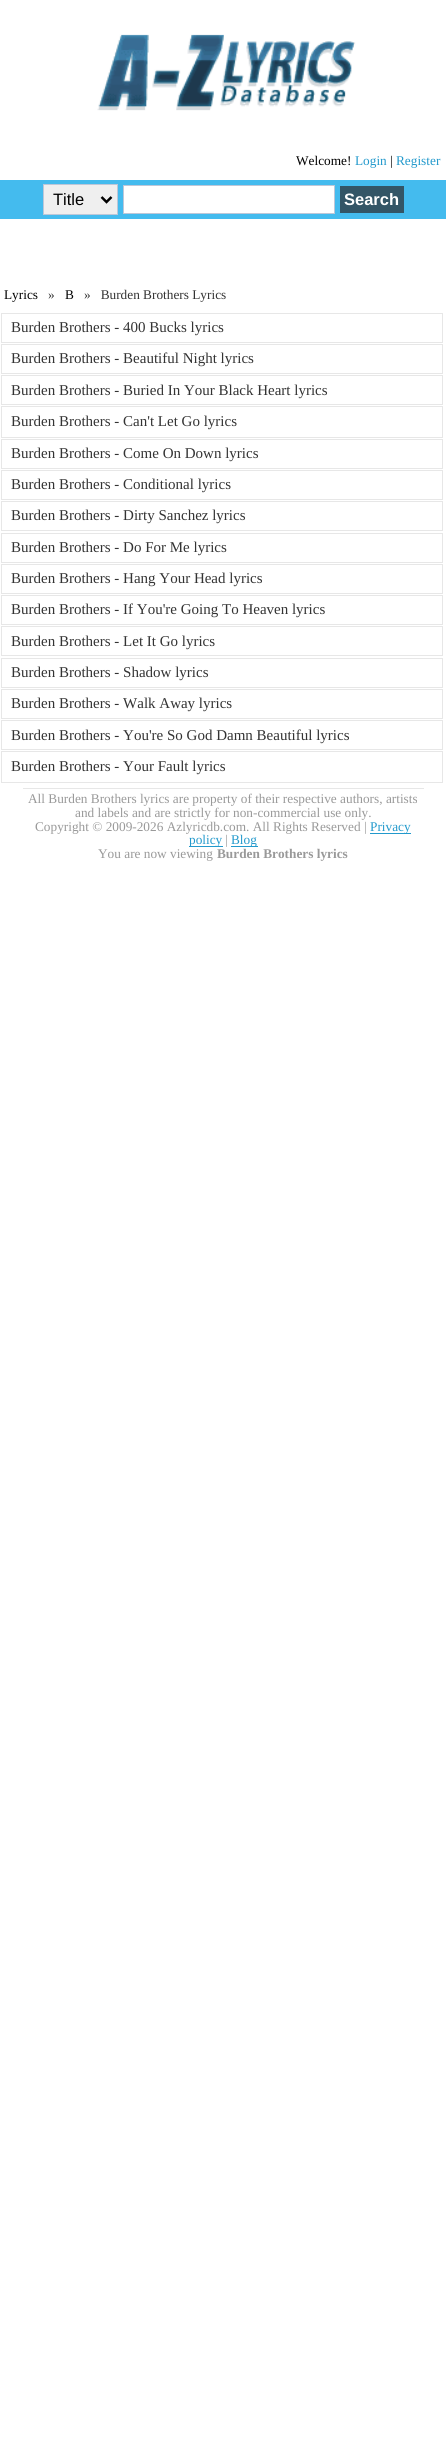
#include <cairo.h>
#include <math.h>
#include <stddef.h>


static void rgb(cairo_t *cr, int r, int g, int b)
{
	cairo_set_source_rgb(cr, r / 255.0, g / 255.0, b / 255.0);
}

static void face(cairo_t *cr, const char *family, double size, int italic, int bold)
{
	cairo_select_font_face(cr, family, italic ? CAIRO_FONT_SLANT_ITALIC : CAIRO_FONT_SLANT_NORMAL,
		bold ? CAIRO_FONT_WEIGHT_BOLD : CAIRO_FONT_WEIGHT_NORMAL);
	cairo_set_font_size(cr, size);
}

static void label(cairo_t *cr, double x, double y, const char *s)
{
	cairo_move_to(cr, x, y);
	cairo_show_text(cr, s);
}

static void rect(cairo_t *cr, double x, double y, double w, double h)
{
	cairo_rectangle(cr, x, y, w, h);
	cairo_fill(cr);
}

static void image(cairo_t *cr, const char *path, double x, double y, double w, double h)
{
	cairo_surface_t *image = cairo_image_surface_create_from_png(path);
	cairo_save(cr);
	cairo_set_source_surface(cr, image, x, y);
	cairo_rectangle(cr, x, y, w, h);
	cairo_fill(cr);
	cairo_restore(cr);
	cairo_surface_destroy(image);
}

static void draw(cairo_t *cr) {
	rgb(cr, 255, 255, 255);
	cairo_paint(cr);
	image(cr, "image0.png", 97, 34, 259, 77);
	face(cr, "Liberation Serif", 13.3, 0, 0);
	rgb(cr, 0, 0, 0);
	label(cr, 296, 165, "Welcome!");
	rgb(cr, 34, 153, 204);
	label(cr, 355, 165, "Login");
	rgb(cr, 0, 0, 0);
	label(cr, 390, 165, "|");
	rgb(cr, 34, 153, 204);
	label(cr, 396, 165, "Register");
	rgb(cr, 68, 187, 238);
	rect(cr, 0, 180, 446, 39);
	rgb(cr, 239, 239, 239);
	cairo_rectangle(cr, 43.5, 184.5, 74, 30);
	cairo_fill_preserve(cr);
	rgb(cr, 189, 199, 216);
	cairo_set_line_width(cr, 1);
	cairo_stroke(cr);
	cairo_new_path(cr);
	cairo_move_to(cr, 101.5, 197);
	cairo_line_to(cr, 106.5, 202);
	cairo_line_to(cr, 111.5, 197);
	rgb(cr, 0, 0, 0);
	cairo_set_line_width(cr, 2.5);
	cairo_stroke(cr);
	face(cr, "Liberation Sans", 16.5, 0, 0);
	label(cr, 53, 205, "Title");
	rgb(cr, 255, 255, 255);
	cairo_rectangle(cr, 123.5, 185.5, 211, 28);
	cairo_fill_preserve(cr);
	rgb(cr, 189, 199, 216);
	cairo_set_line_width(cr, 1);
	cairo_stroke(cr);
	rgb(cr, 51, 85, 102);
	rect(cr, 340, 186, 64, 27);
	face(cr, "Liberation Sans", 16.5, 0, 1);
	rgb(cr, 255, 255, 255);
	label(cr, 344, 205, "Search");
	face(cr, "Liberation Serif", 13.3, 0, 0);
	rgb(cr, 0, 0, 0);
	label(cr, 4, 299, "Lyrics");
	rgb(cr, 51, 51, 51);
	label(cr, 48, 299, "»");
	rgb(cr, 0, 0, 0);
	label(cr, 65, 299, "B");
	rgb(cr, 51, 51, 51);
	label(cr, 84, 299, "»   Burden Brothers Lyrics");
	cairo_rectangle(cr, 1.5, 313.5, 441, 29);
	rgb(cr, 231, 231, 231);
	cairo_stroke(cr);
	face(cr, "Liberation Serif", 15, 0, 0);
	rgb(cr, 51, 51, 51);
	label(cr, 11, 332, "Burden Brothers - 400 Bucks lyrics");
	cairo_rectangle(cr, 1.5, 344.5, 441, 29);
	rgb(cr, 231, 231, 231);
	cairo_stroke(cr);
	rgb(cr, 51, 51, 51);
	label(cr, 11, 363, "Burden Brothers - Beautiful Night lyrics");
	cairo_rectangle(cr, 1.5, 375.5, 441, 29);
	rgb(cr, 231, 231, 231);
	cairo_stroke(cr);
	rgb(cr, 51, 51, 51);
	label(cr, 11, 395, "Burden Brothers - Buried In Your Black Heart lyrics");
	cairo_rectangle(cr, 1.5, 406.5, 441, 31);
	rgb(cr, 231, 231, 231);
	cairo_stroke(cr);
	rgb(cr, 51, 51, 51);
	label(cr, 11, 426, "Burden Brothers - Can't Let Go lyrics");
	cairo_rectangle(cr, 1.5, 439.5, 441, 29);
	rgb(cr, 231, 231, 231);
	cairo_stroke(cr);
	rgb(cr, 51, 51, 51);
	label(cr, 11, 458, "Burden Brothers - Come On Down lyrics");
	cairo_rectangle(cr, 1.5, 470.5, 441, 29);
	rgb(cr, 231, 231, 231);
	cairo_stroke(cr);
	rgb(cr, 51, 51, 51);
	label(cr, 11, 489, "Burden Brothers - Conditional lyrics");
	cairo_rectangle(cr, 1.5, 501.5, 441, 29);
	rgb(cr, 231, 231, 231);
	cairo_stroke(cr);
	rgb(cr, 51, 51, 51);
	label(cr, 11, 520, "Burden Brothers - Dirty Sanchez lyrics");
	cairo_rectangle(cr, 1.5, 533.5, 441, 29);
	rgb(cr, 231, 231, 231);
	cairo_stroke(cr);
	rgb(cr, 51, 51, 51);
	label(cr, 11, 552, "Burden Brothers - Do For Me lyrics");
	cairo_rectangle(cr, 1.5, 564.5, 441, 29);
	rgb(cr, 231, 231, 231);
	cairo_stroke(cr);
	rgb(cr, 51, 51, 51);
	label(cr, 11, 583, "Burden Brothers - Hang Your Head lyrics");
	cairo_rectangle(cr, 1.5, 595.5, 441, 29);
	rgb(cr, 231, 231, 231);
	cairo_stroke(cr);
	rgb(cr, 51, 51, 51);
	label(cr, 11, 614, "Burden Brothers - If You're Going To Heaven lyrics");
	cairo_rectangle(cr, 1.5, 626.5, 441, 29);
	rgb(cr, 231, 231, 231);
	cairo_stroke(cr);
	rgb(cr, 51, 51, 51);
	label(cr, 11, 646, "Burden Brothers - Let It Go lyrics");
	cairo_rectangle(cr, 1.5, 658.5, 441, 29);
	rgb(cr, 231, 231, 231);
	cairo_stroke(cr);
	rgb(cr, 51, 51, 51);
	label(cr, 11, 677, "Burden Brothers - Shadow lyrics");
	cairo_rectangle(cr, 1.5, 689.5, 441, 29);
	rgb(cr, 231, 231, 231);
	cairo_stroke(cr);
	rgb(cr, 51, 51, 51);
	label(cr, 11, 708, "Burden Brothers - Walk Away lyrics");
	cairo_rectangle(cr, 1.5, 720.5, 441, 29);
	rgb(cr, 231, 231, 231);
	cairo_stroke(cr);
	rgb(cr, 51, 51, 51);
	label(cr, 11, 740, "Burden Brothers - You're So God Damn Beautiful lyrics");
	cairo_rectangle(cr, 1.5, 751.5, 441, 31);
	rgb(cr, 231, 231, 231);
	cairo_stroke(cr);
	rgb(cr, 51, 51, 51);
	label(cr, 11, 771, "Burden Brothers - Your Fault lyrics");
	rgb(cr, 231, 231, 231);
	rect(cr, 23, 788, 401, 1);
	face(cr, "Liberation Serif", 13.3, 0, 0);
	rgb(cr, 153, 153, 153);
	label(cr, 28, 803, "All Burden Brothers lyrics are property of their respective authors, artists");
	label(cr, 75, 817, "and labels and are strictly for non-commercial use only.");
	label(cr, 35, 831, "Copyright © 2009-2026 Azlyricdb.com. All Rights Reserved |");
	rgb(cr, 34, 153, 204);
	rect(cr, 370, 833, 41, 1);
	label(cr, 370, 831, "Privacy");
	rect(cr, 189, 846, 34, 1);
	label(cr, 189, 844, "policy");
	rgb(cr, 153, 153, 153);
	label(cr, 225, 844, "|");
	rgb(cr, 34, 153, 204);
	rect(cr, 231, 846, 27, 1);
	label(cr, 231, 844, "Blog");
	rgb(cr, 153, 153, 153);
	label(cr, 98, 858, "You are now viewing");
	face(cr, "Liberation Serif", 13.3, 0, 1);
	label(cr, 217, 858, "Burden Brothers lyrics");
}

int main(void) {
	cairo_surface_t *surface = cairo_image_surface_create(CAIRO_FORMAT_RGB24, 446, 2442);
	cairo_t *cr = cairo_create(surface);
	cairo_font_options_t *options = cairo_font_options_create();
	cairo_font_options_set_hint_metrics(options, CAIRO_HINT_METRICS_OFF);
	cairo_font_options_set_hint_style(options, CAIRO_HINT_STYLE_NONE);
	cairo_set_font_options(cr, options);
	cairo_set_miter_limit(cr, 4);
	draw(cr);
	cairo_surface_write_to_png(surface, "render.png");
	cairo_font_options_destroy(options);
	cairo_destroy(cr);
	cairo_surface_destroy(surface);
	return 0;
}
